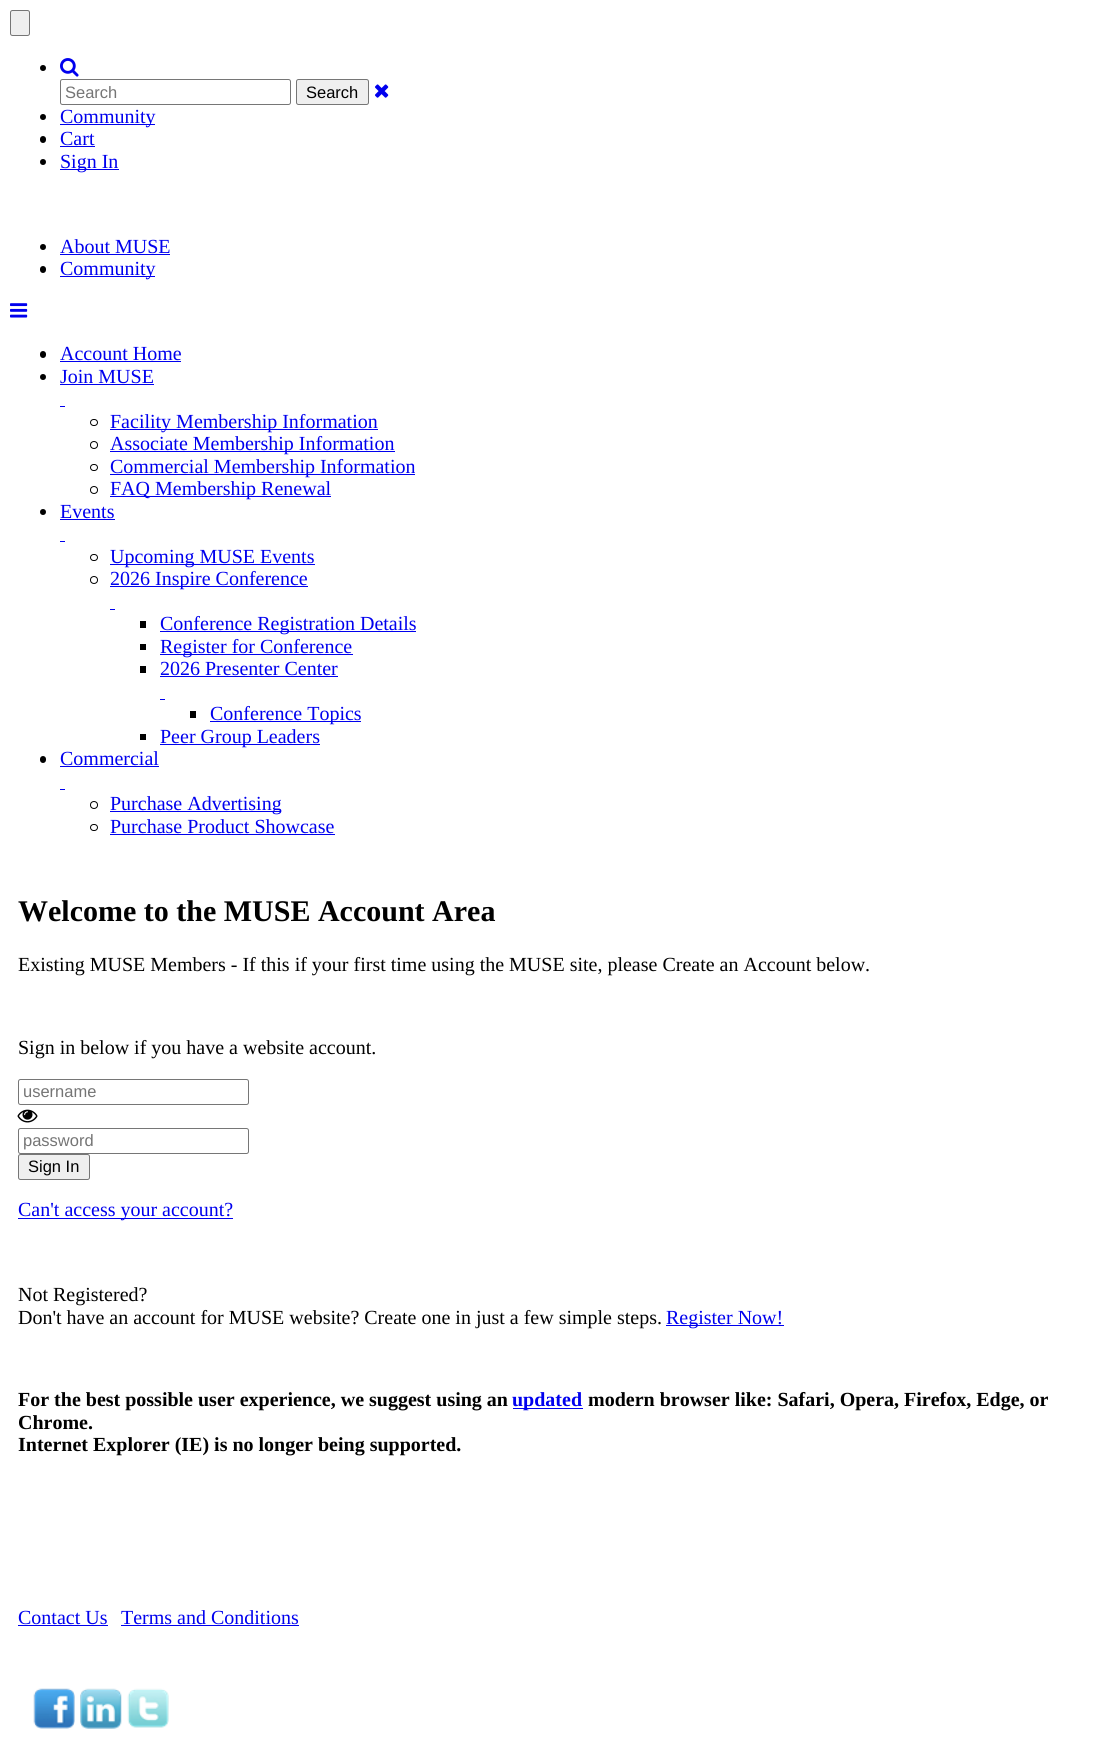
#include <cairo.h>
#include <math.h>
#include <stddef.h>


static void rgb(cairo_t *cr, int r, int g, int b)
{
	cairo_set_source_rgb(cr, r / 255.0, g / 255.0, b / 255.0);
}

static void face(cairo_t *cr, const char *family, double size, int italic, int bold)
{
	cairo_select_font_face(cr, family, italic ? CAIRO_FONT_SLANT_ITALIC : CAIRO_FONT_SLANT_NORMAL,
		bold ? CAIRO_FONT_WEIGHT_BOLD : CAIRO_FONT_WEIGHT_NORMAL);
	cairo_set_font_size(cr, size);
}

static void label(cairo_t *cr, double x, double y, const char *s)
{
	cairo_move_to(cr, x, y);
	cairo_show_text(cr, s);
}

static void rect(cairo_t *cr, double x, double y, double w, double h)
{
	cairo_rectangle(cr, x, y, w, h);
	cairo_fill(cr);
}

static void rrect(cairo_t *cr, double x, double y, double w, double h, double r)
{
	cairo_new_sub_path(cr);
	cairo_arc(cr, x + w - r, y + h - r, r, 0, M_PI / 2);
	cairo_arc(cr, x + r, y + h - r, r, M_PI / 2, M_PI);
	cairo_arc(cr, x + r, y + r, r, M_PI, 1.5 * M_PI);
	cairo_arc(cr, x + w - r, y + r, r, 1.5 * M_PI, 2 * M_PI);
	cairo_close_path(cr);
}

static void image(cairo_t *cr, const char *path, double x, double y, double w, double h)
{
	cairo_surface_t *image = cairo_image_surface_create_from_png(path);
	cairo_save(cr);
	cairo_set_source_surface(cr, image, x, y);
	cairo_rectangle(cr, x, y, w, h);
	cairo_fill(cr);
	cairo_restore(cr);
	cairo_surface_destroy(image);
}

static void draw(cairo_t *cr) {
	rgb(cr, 255, 255, 255);
	cairo_paint(cr);
	rgb(cr, 239, 239, 239);
	rrect(cr, 10.5, 10.5, 19, 25, 2);
	cairo_fill_preserve(cr);
	rgb(cr, 118, 118, 118);
	cairo_set_line_width(cr, 1);
	cairo_stroke(cr);
	rgb(cr, 0, 0, 0);
	cairo_arc(cr, 43, 68, 3, 0, 2 * M_PI);
	cairo_fill(cr);
	image(cr, "image0.png", 60, 58, 19, 19);
	rrect(cr, 60.5, 79.5, 230, 25, 2);
	rgb(cr, 118, 118, 118);
	cairo_stroke(cr);
	face(cr, "Liberation Sans", 16.5, 0, 0);
	rgb(cr, 117, 117, 117);
	label(cr, 65, 98, "Search");
	rgb(cr, 239, 239, 239);
	rrect(cr, 296.5, 79.5, 72, 25, 2);
	cairo_fill_preserve(cr);
	rgb(cr, 118, 118, 118);
	cairo_stroke(cr);
	rgb(cr, 0, 0, 0);
	label(cr, 306, 98, "Search");
	image(cr, "image1.png", 375, 84, 14, 14);
	cairo_arc(cr, 43, 117, 3, 0, 2 * M_PI);
	cairo_fill(cr);
	rgb(cr, 0, 0, 238);
	rect(cr, 60, 124, 95, 1);
	face(cr, "Liberation Serif", 20, 0, 0);
	label(cr, 60, 123, "Community");
	rgb(cr, 0, 0, 0);
	rrect(cr, 40, 136, 6, 7, 3);
	cairo_fill(cr);
	rgb(cr, 0, 0, 238);
	label(cr, 60, 145, "Cart");
	rect(cr, 60, 146, 35, 1);
	rgb(cr, 0, 0, 0);
	cairo_new_path(cr);
	cairo_arc(cr, 43, 162, 3, 0, 2 * M_PI);
	cairo_fill(cr);
	rgb(cr, 0, 0, 238);
	rect(cr, 60, 169, 59, 1);
	label(cr, 60, 168, "Sign In");
	rgb(cr, 0, 0, 0);
	cairo_new_path(cr);
	cairo_arc(cr, 43, 247, 3, 0, 2 * M_PI);
	cairo_fill(cr);
	rgb(cr, 0, 0, 238);
	label(cr, 60, 253, "About MUSE");
	rect(cr, 60, 254, 110, 1);
	rgb(cr, 0, 0, 0);
	rrect(cr, 40, 266, 6, 7, 3);
	cairo_fill(cr);
	rgb(cr, 0, 0, 238);
	rect(cr, 60, 276, 95, 1);
	label(cr, 60, 275, "Community");
	image(cr, "image2.png", 10, 303, 18, 15);
	rgb(cr, 0, 0, 0);
	rrect(cr, 40, 351, 6, 7, 3);
	cairo_fill(cr);
	rgb(cr, 0, 0, 238);
	label(cr, 60, 360, "Account Home");
	rect(cr, 60, 361, 121, 1);
	rgb(cr, 0, 0, 0);
	cairo_new_path(cr);
	cairo_arc(cr, 43, 377, 3, 0, 2 * M_PI);
	cairo_fill(cr);
	rgb(cr, 0, 0, 238);
	label(cr, 60, 383, "Join MUSE");
	rect(cr, 60, 384, 94, 1);
	rect(cr, 60, 406, 5, 1);
	rrect(cr, 90.5, 419.5, 7, 6, 3);
	rgb(cr, 0, 0, 0);
	cairo_stroke(cr);
	rgb(cr, 0, 0, 238);
	rect(cr, 110, 429, 268, 1);
	label(cr, 110, 428, "Facility Membership Information");
	cairo_new_path(cr);
	cairo_arc(cr, 94, 445, 3.5, 0, 2 * M_PI);
	rgb(cr, 0, 0, 0);
	cairo_stroke(cr);
	rgb(cr, 0, 0, 238);
	rect(cr, 110, 451, 285, 1);
	label(cr, 110, 450, "Associate Membership Information");
	rrect(cr, 90.5, 464.5, 7, 6, 3);
	rgb(cr, 0, 0, 0);
	cairo_stroke(cr);
	rgb(cr, 0, 0, 238);
	rect(cr, 110, 474, 305, 1);
	label(cr, 110, 473, "Commercial Membership Information");
	cairo_new_path(cr);
	cairo_arc(cr, 94, 490, 3.5, 0, 2 * M_PI);
	rgb(cr, 0, 0, 0);
	cairo_stroke(cr);
	rgb(cr, 0, 0, 238);
	rect(cr, 110, 496, 221, 1);
	label(cr, 110, 495, "FAQ Membership Renewal");
	rgb(cr, 0, 0, 0);
	cairo_new_path(cr);
	cairo_arc(cr, 43, 512, 3, 0, 2 * M_PI);
	cairo_fill(cr);
	rgb(cr, 0, 0, 238);
	label(cr, 60, 518, "Events");
	rect(cr, 60, 519, 55, 1);
	rect(cr, 60, 541, 5, 1);
	rrect(cr, 90.5, 554.5, 7, 6, 3);
	rgb(cr, 0, 0, 0);
	cairo_stroke(cr);
	rgb(cr, 0, 0, 238);
	rect(cr, 110, 564, 205, 1);
	label(cr, 110, 563, "Upcoming MUSE Events");
	cairo_new_path(cr);
	cairo_arc(cr, 94, 580, 3.5, 0, 2 * M_PI);
	rgb(cr, 0, 0, 0);
	cairo_stroke(cr);
	rgb(cr, 0, 0, 238);
	rect(cr, 110, 586, 198, 1);
	label(cr, 110, 585, "2026 Inspire Conference");
	rect(cr, 110, 609, 5, 1);
	rgb(cr, 0, 0, 0);
	rect(cr, 140, 621, 6, 7);
	rgb(cr, 0, 0, 238);
	rect(cr, 160, 631, 256, 1);
	label(cr, 160, 630, "Conference Registration Details");
	rgb(cr, 0, 0, 0);
	rect(cr, 140, 644, 6, 6);
	rgb(cr, 0, 0, 238);
	rect(cr, 160, 654, 193, 1);
	label(cr, 160, 653, "Register for Conference");
	rgb(cr, 0, 0, 0);
	rect(cr, 140, 666, 6, 7);
	rgb(cr, 0, 0, 238);
	label(cr, 160, 675, "2026 Presenter Center");
	rect(cr, 160, 676, 178, 1);
	rect(cr, 160, 699, 5, 1);
	rgb(cr, 0, 0, 0);
	rect(cr, 190, 711, 6, 7);
	rgb(cr, 0, 0, 238);
	rect(cr, 210, 721, 151, 1);
	label(cr, 210, 720, "Conference Topics");
	rgb(cr, 0, 0, 0);
	rect(cr, 140, 734, 6, 6);
	rgb(cr, 0, 0, 238);
	rect(cr, 160, 744, 160, 1);
	label(cr, 160, 743, "Peer Group Leaders");
	rgb(cr, 0, 0, 0);
	rrect(cr, 40, 756, 6, 7, 3);
	cairo_fill(cr);
	rgb(cr, 0, 0, 238);
	label(cr, 60, 765, "Commercial");
	rect(cr, 60, 766, 99, 1);
	rect(cr, 60, 789, 5, 1);
	cairo_new_path(cr);
	cairo_arc(cr, 94, 805, 3.5, 0, 2 * M_PI);
	rgb(cr, 0, 0, 0);
	cairo_stroke(cr);
	rgb(cr, 0, 0, 238);
	rect(cr, 110, 811, 171, 1);
	label(cr, 110, 810, "Purchase Advertising");
	rrect(cr, 90.5, 824.5, 7, 6, 3);
	rgb(cr, 0, 0, 0);
	cairo_stroke(cr);
	rgb(cr, 0, 0, 238);
	label(cr, 110, 833, "Purchase Product Showcase");
	rect(cr, 110, 834, 225, 1);
	face(cr, "Liberation Serif", 30, 0, 1);
	rgb(cr, 0, 0, 0);
	label(cr, 18, 921, "Welcome to the MUSE Account Area");
	face(cr, "Liberation Serif", 20, 0, 0);
	label(cr, 18, 971, "Existing MUSE Members - If this if your first time using the MUSE site, please Create an Account below.");
	label(cr, 18, 1054, "Sign in below if you have a website account.");
	rrect(cr, 18.5, 1079.5, 230, 25, 2);
	rgb(cr, 118, 118, 118);
	cairo_stroke(cr);
	face(cr, "Liberation Sans", 16.5, 0, 0);
	rgb(cr, 117, 117, 117);
	label(cr, 23, 1097, "username");
	image(cr, "image3.png", 17, 1109, 21, 14);
	rrect(cr, 18.5, 1128.5, 230, 25, 2);
	rgb(cr, 118, 118, 118);
	cairo_stroke(cr);
	rgb(cr, 117, 117, 117);
	label(cr, 23, 1146, "password");
	rgb(cr, 239, 239, 239);
	rrect(cr, 18.5, 1154.5, 71, 25, 2);
	cairo_fill_preserve(cr);
	rgb(cr, 118, 118, 118);
	cairo_stroke(cr);
	rgb(cr, 0, 0, 0);
	label(cr, 28, 1172, "Sign In");
	rgb(cr, 0, 0, 238);
	rect(cr, 18, 1218, 215, 1);
	face(cr, "Liberation Serif", 20, 0, 0);
	label(cr, 18, 1216, "Can't access your account?");
	rgb(cr, 0, 0, 0);
	label(cr, 18, 1301, "Not Registered?");
	label(cr, 18, 1324, "Don't have an account for MUSE website? Create one in just a few simple steps.");
	rgb(cr, 0, 0, 238);
	rect(cr, 666, 1325, 118, 1);
	label(cr, 666, 1324, "Register Now!");
	face(cr, "Liberation Serif", 20, 0, 1);
	rgb(cr, 0, 0, 0);
	label(cr, 18, 1406, "For the best possible user experience, we suggest using an");
	rgb(cr, 0, 0, 238);
	rect(cr, 513, 1408, 70, 1);
	label(cr, 512, 1406, "updated");
	rgb(cr, 0, 0, 0);
	label(cr, 588, 1406, "modern browser like: Safari, Opera, Firefox, Edge, or");
	label(cr, 18, 1429, "Chrome.");
	label(cr, 18, 1451, "Internet Explorer (IE) is no longer being supported.");
	face(cr, "Liberation Serif", 20, 0, 0);
	rgb(cr, 0, 0, 238);
	label(cr, 18, 1624, "Contact Us");
	rect(cr, 18, 1625, 90, 1);
	label(cr, 121, 1624, "Terms and Conditions");
	rect(cr, 121, 1625, 178, 1);
	image(cr, "image4.png", 33, 1688, 42, 41);
	image(cr, "image5.png", 80, 1688, 42, 41);
	image(cr, "image6.png", 127, 1688, 42, 40);
}

int main(void) {
	cairo_surface_t *surface = cairo_image_surface_create(CAIRO_FORMAT_RGB24, 1100, 1747);
	cairo_t *cr = cairo_create(surface);
	cairo_font_options_t *options = cairo_font_options_create();
	cairo_font_options_set_hint_metrics(options, CAIRO_HINT_METRICS_OFF);
	cairo_font_options_set_hint_style(options, CAIRO_HINT_STYLE_NONE);
	cairo_set_font_options(cr, options);
	cairo_set_miter_limit(cr, 4);
	draw(cr);
	cairo_surface_write_to_png(surface, "render.png");
	cairo_font_options_destroy(options);
	cairo_destroy(cr);
	cairo_surface_destroy(surface);
	return 0;
}
